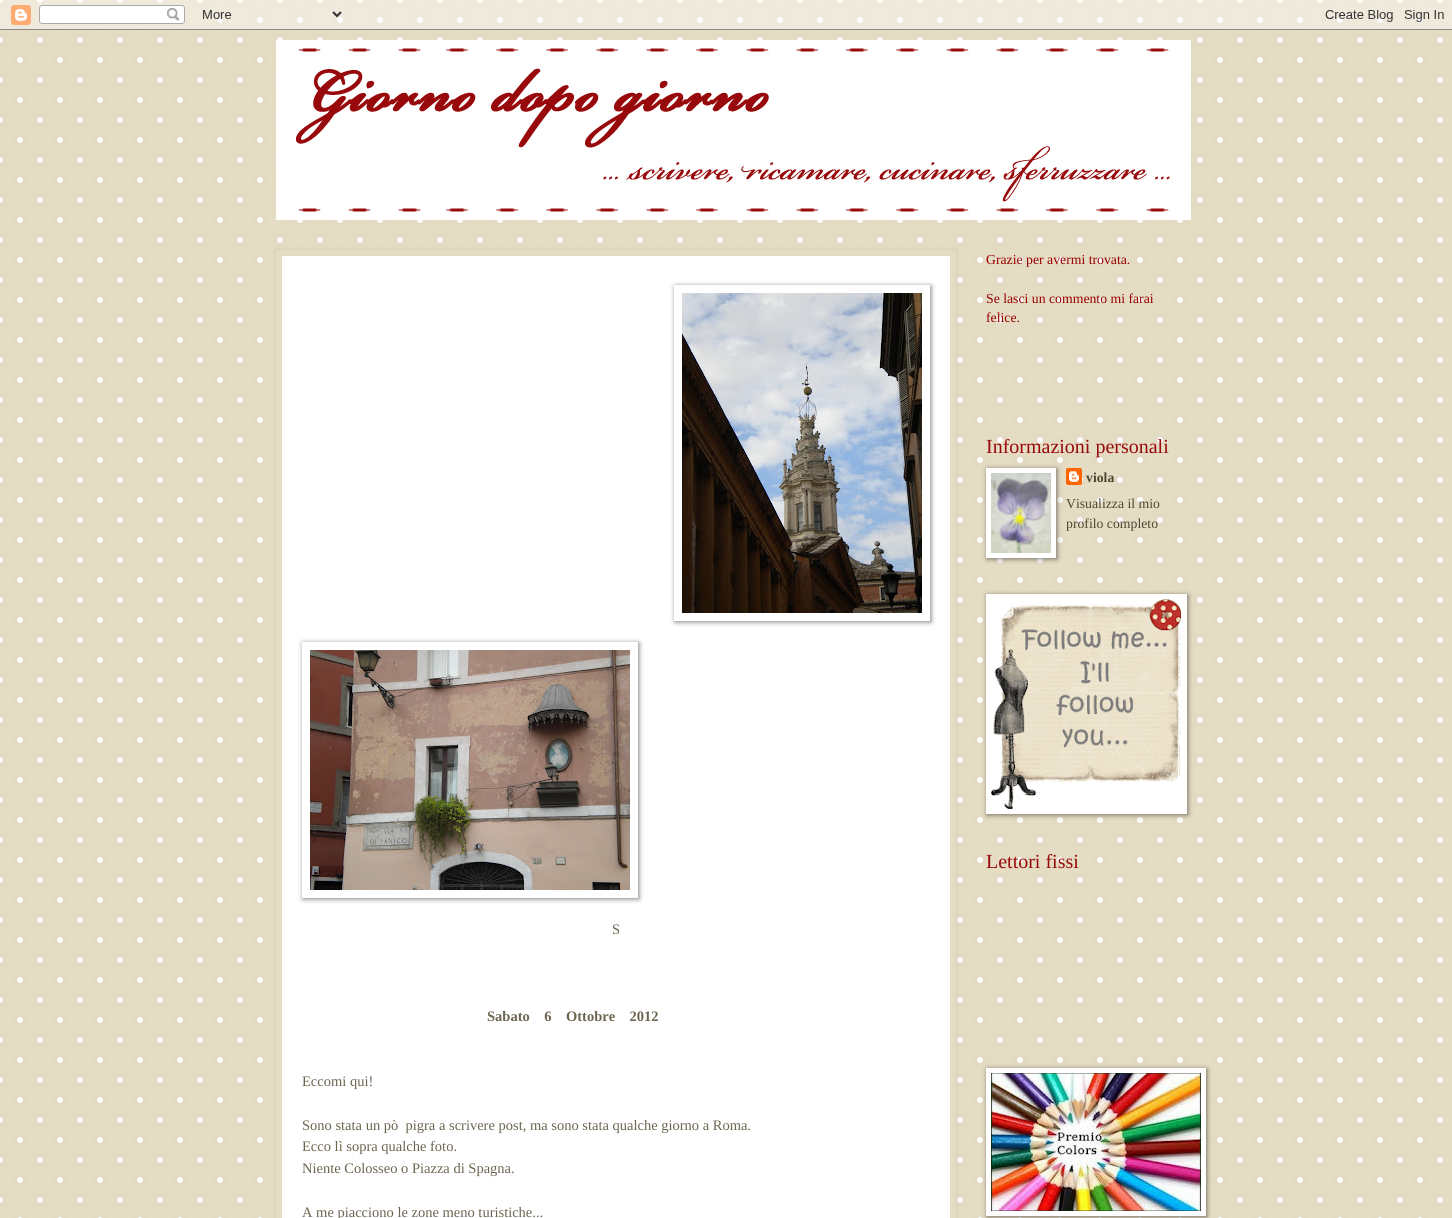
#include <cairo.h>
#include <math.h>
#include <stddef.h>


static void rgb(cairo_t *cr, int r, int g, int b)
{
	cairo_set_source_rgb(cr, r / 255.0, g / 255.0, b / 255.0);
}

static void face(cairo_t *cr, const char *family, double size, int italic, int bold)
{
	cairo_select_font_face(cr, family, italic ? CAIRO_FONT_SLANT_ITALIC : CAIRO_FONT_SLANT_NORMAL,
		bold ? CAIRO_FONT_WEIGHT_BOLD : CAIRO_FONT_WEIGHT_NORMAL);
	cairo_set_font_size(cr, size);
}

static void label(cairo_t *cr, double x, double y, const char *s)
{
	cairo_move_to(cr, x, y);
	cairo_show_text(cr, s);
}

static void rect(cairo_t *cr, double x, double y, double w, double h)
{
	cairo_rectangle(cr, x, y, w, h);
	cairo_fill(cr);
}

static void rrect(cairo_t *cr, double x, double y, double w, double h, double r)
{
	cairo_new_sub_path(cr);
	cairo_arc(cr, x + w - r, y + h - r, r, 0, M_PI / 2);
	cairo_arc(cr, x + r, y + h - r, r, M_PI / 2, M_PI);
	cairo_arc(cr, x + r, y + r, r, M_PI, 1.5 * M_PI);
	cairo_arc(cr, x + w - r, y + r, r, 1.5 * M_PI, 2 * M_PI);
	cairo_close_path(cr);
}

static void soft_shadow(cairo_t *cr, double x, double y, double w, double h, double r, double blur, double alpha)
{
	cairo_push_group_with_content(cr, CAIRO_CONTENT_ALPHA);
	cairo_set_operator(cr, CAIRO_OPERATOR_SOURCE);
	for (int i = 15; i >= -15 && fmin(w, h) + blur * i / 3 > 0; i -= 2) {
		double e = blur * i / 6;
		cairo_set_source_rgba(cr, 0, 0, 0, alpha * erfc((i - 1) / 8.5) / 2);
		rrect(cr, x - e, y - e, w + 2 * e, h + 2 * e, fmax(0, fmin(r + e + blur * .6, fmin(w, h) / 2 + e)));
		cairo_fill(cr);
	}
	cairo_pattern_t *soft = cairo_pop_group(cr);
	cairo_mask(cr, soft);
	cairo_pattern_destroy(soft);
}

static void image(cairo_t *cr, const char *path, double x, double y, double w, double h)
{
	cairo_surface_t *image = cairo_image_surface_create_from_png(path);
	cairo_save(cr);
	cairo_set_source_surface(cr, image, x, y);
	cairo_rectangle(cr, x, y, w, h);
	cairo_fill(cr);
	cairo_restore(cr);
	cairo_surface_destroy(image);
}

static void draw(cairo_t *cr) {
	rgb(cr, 229, 220, 196);
	cairo_paint(cr);
	image(cr, "image0.png", 0, 0, 1444, 1218);
	image(cr, "image1.png", 0, 0, 1452, 30);
	image(cr, "image2.png", 276, 40, 915, 180);
	face(cr, "Liberation Serif", 13.75, 0, 0);
	rgb(cr, 153, 0, 0);
	label(cr, 986, 264, "Grazie per avermi trovata.");
	label(cr, 986, 303, "Se lasci un commento mi farai");
	label(cr, 986, 322, "felice.");
	face(cr, "Liberation Serif", 20, 0, 0);
	rgb(cr, 152, 9, 11);
	label(cr, 986, 453, "Informazioni personali");
	rgb(cr, 0, 0, 0);
	soft_shadow(cr, 987, 469, 70, 90, 0, 2.5, 0.5);
	rgb(cr, 255, 255, 255);
	rect(cr, 986, 468, 70, 90);
	image(cr, "image3.png", 991, 473, 60, 80);
	image(cr, "image4.png", 1066, 468, 16, 17);
	face(cr, "Liberation Serif", 13.75, 0, 1);
	rgb(cr, 76, 70, 50);
	label(cr, 1086, 482, "viola");
	face(cr, "Liberation Serif", 13.75, 0, 0);
	label(cr, 1066, 508, "Visualizza il mio");
	label(cr, 1066, 528, "profilo completo");
	rgb(cr, 0, 0, 0);
	soft_shadow(cr, 987, 595, 201, 220, 0, 2.5, 0.5);
	rgb(cr, 255, 255, 255);
	rect(cr, 986, 594, 201, 220);
	image(cr, "image5.png", 991, 599, 190, 210);
	face(cr, "Liberation Serif", 20, 0, 0);
	rgb(cr, 152, 9, 11);
	label(cr, 986, 868, "Lettori fissi");
	rgb(cr, 0, 0, 0);
	soft_shadow(cr, 987, 1069, 220, 148, 0, 2.5, 0.5);
	rgb(cr, 255, 255, 255);
	rect(cr, 986, 1068, 220, 148);
	image(cr, "image6.png", 991, 1073, 210, 138);
	rgb(cr, 0, 0, 0);
	soft_shadow(cr, 276, 250, 680, 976, 0, 2.5, 0.1);
	rgb(cr, 255, 255, 255);
	cairo_rectangle(cr, 279, 253, 674, 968);
	cairo_fill_preserve(cr);
	rgb(cr, 229, 220, 196);
	cairo_set_line_width(cr, 6);
	cairo_stroke(cr);
	cairo_save(cr);
	cairo_set_fill_rule(cr, CAIRO_FILL_RULE_EVEN_ODD);
	cairo_new_path(cr);
	cairo_move_to(cr, 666, 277);
	cairo_line_to(cr, 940, 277);
	cairo_line_to(cr, 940, 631);
	cairo_line_to(cr, 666, 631);
	cairo_close_path(cr);
	cairo_move_to(cr, 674, 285);
	cairo_line_to(cr, 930, 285);
	cairo_line_to(cr, 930, 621);
	cairo_line_to(cr, 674, 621);
	cairo_close_path(cr);
	cairo_clip(cr);
	rgb(cr, 0, 0, 0);
	soft_shadow(cr, 675, 286, 256, 336, 0, 2.5, 0.5);
	cairo_restore(cr);
	image(cr, "image7.png", 682, 293, 240, 320);
	cairo_save(cr);
	cairo_set_fill_rule(cr, CAIRO_FILL_RULE_EVEN_ODD);
	cairo_new_path(cr);
	cairo_move_to(cr, 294, 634);
	cairo_line_to(cr, 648, 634);
	cairo_line_to(cr, 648, 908);
	cairo_line_to(cr, 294, 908);
	cairo_close_path(cr);
	cairo_move_to(cr, 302, 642);
	cairo_line_to(cr, 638, 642);
	cairo_line_to(cr, 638, 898);
	cairo_line_to(cr, 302, 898);
	cairo_close_path(cr);
	cairo_clip(cr);
	rgb(cr, 0, 0, 0);
	soft_shadow(cr, 303, 643, 336, 256, 0, 2.5, 0.5);
	cairo_restore(cr);
	image(cr, "image8.png", 310, 650, 320, 240);
	face(cr, "Liberation Serif", 14.5, 0, 0);
	rgb(cr, 108, 101, 80);
	label(cr, 612, 934, "S");
	face(cr, "Liberation Serif", 14.5, 0, 1);
	label(cr, 487, 1021, "Sabato    6    Ottobre    2012");
	face(cr, "Liberation Serif", 14.5, 0, 0);
	label(cr, 302, 1086, "Eccomi qui!");
	label(cr, 302, 1130, "Sono stata un pò  pigra a scrivere post, ma sono stata qualche giorno a Roma.");
	label(cr, 302, 1151, "Ecco lì sopra qualche foto.");
	label(cr, 302, 1173, "Niente Colosseo o Piazza di Spagna.");
	label(cr, 302, 1217, "A me piacciono le zone meno turistiche...");
}

int main(void) {
	cairo_surface_t *surface = cairo_image_surface_create(CAIRO_FORMAT_RGB24, 1452, 1218);
	cairo_t *cr = cairo_create(surface);
	cairo_font_options_t *options = cairo_font_options_create();
	cairo_font_options_set_hint_metrics(options, CAIRO_HINT_METRICS_OFF);
	cairo_font_options_set_hint_style(options, CAIRO_HINT_STYLE_NONE);
	cairo_set_font_options(cr, options);
	cairo_set_miter_limit(cr, 4);
	draw(cr);
	cairo_surface_write_to_png(surface, "render.png");
	cairo_font_options_destroy(options);
	cairo_destroy(cr);
	cairo_surface_destroy(surface);
	return 0;
}
